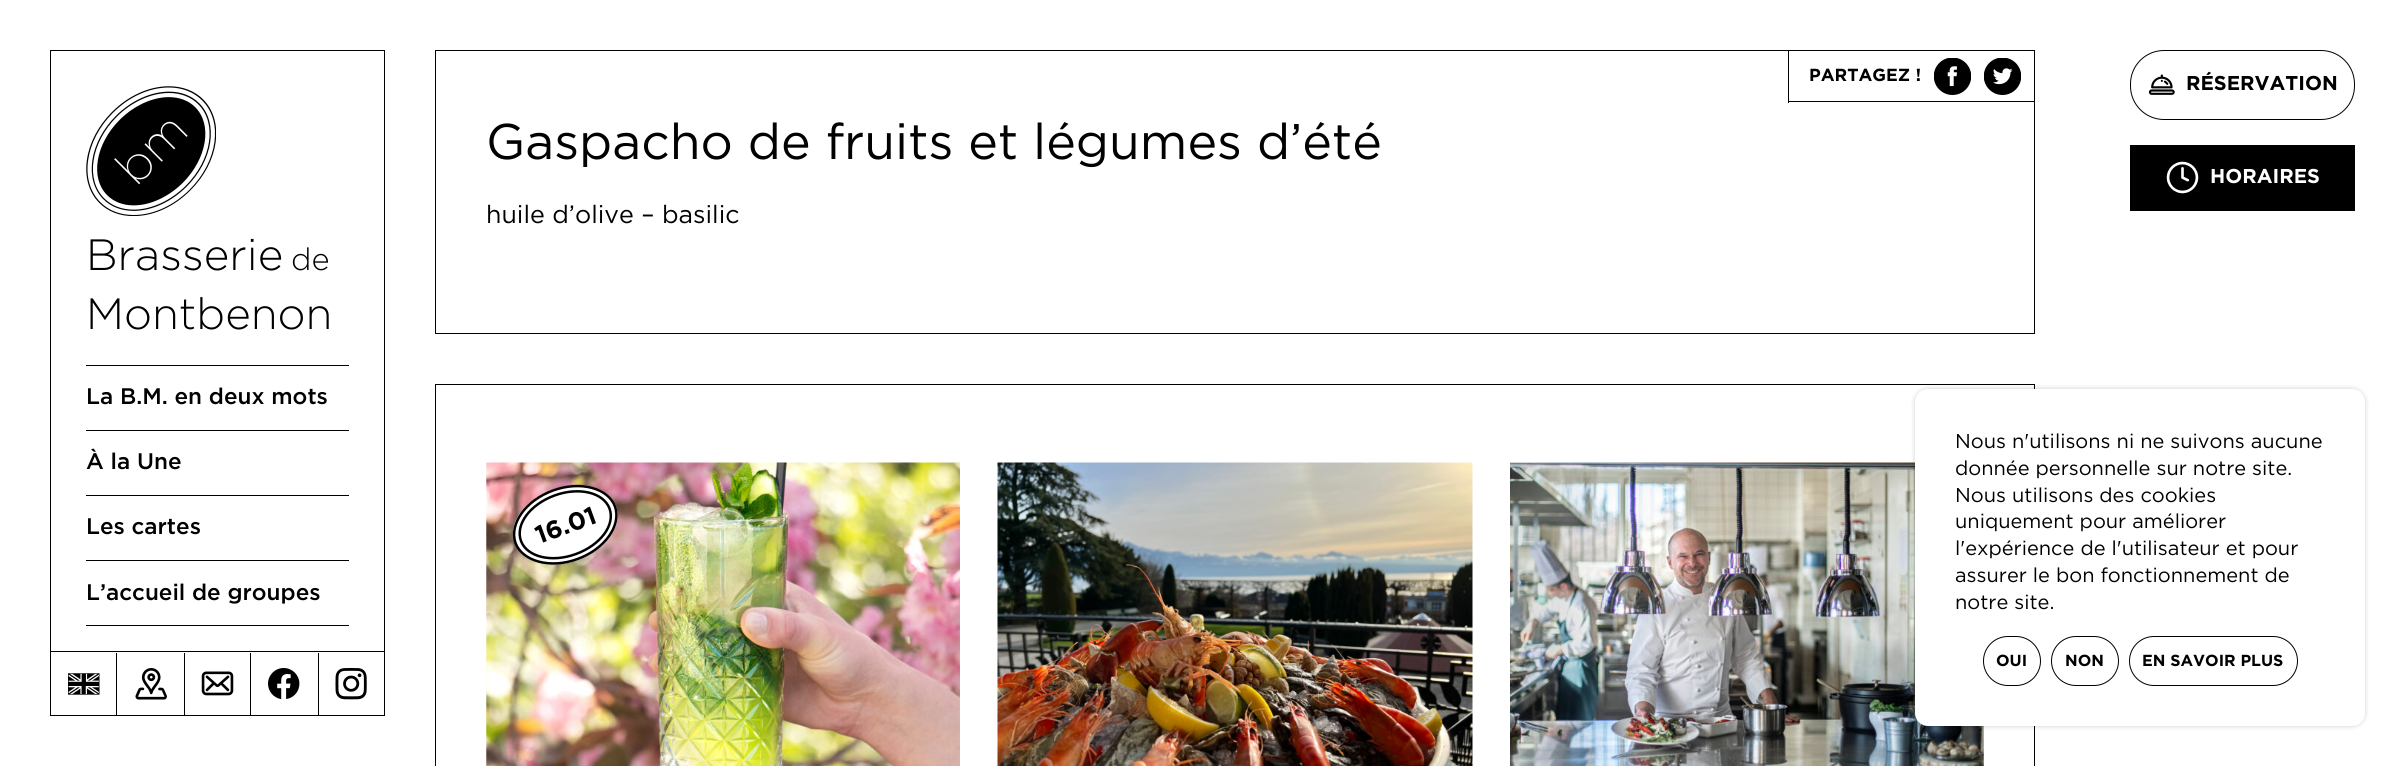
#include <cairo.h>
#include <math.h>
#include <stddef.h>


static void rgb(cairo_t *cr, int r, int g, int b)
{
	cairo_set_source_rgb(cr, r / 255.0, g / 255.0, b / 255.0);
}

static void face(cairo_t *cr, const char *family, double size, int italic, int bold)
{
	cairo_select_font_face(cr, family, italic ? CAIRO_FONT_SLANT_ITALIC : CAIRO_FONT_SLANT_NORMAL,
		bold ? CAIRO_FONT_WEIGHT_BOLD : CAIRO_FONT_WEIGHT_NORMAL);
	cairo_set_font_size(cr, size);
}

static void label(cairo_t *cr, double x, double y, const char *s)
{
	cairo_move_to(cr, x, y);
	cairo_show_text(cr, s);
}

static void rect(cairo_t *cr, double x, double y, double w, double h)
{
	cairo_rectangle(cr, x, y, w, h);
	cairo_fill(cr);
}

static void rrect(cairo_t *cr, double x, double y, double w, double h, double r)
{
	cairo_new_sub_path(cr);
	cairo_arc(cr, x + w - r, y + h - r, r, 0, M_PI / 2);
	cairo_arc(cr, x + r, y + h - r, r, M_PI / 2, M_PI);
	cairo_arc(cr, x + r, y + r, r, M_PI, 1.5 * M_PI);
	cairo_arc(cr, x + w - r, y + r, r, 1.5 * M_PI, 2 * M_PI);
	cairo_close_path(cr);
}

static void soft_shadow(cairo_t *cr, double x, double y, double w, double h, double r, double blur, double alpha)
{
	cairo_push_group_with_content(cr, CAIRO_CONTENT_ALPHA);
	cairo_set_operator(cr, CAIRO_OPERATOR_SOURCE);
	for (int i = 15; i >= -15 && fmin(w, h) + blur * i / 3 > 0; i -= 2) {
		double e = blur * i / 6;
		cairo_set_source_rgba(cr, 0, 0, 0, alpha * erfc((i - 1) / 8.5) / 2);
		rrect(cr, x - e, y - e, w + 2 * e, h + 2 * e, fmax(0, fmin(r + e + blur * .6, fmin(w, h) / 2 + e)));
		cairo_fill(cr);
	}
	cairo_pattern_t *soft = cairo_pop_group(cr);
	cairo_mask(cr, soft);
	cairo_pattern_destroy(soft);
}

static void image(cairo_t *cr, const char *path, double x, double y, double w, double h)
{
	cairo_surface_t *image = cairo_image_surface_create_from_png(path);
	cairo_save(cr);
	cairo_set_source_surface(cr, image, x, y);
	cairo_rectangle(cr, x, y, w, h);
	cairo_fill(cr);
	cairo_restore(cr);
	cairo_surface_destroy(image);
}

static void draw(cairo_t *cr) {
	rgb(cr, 255, 255, 255);
	cairo_paint(cr);
	cairo_rectangle(cr, 435.5, 50.5, 1599, 283);
	rgb(cr, 0, 0, 0);
	cairo_set_line_width(cr, 1);
	cairo_stroke(cr);
	rect(cr, 1788, 101, 246, 1);
	rect(cr, 1788, 51, 1, 52);
	face(cr, "Gotham", 17.5, 0, 1);
	label(cr, 1809, 81, "PARTAGEZ !");
	image(cr, "image0.png", 1934, 58, 37, 37);
	image(cr, "image1.png", 1984, 58, 37, 37);
	face(cr, "Gotham", 50, 0, 0);
	label(cr, 486, 159, "Gaspacho de fruits et légumes d’été");
	face(cr, "Gotham", 25, 0, 0);
	label(cr, 486, 223, "huile d’olive – basilic");
	cairo_rectangle(cr, 435.5, 384.5, 1599, 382);
	cairo_stroke(cr);
	image(cr, "image2.png", 486, 462, 474, 304);
	rgb(cr, 255, 255, 255);
	cairo_new_path(cr);
	cairo_move_to(cr, 552, 490);
	cairo_curve_to(cr, 580, 479, 609, 487, 616, 506);
	cairo_curve_to(cr, 623, 526, 606, 550, 578, 560);
	cairo_curve_to(cr, 550, 570, 522, 563, 515, 543);
	cairo_curve_to(cr, 507, 524, 524, 500, 552, 490);
	cairo_close_path(cr);
	cairo_fill(cr);
	cairo_new_path(cr);
	cairo_move_to(cr, 553, 490.5);
	cairo_curve_to(cr, 580.5, 480.5, 608, 488, 615, 506.5);
	cairo_curve_to(cr, 621.5, 525.5, 605, 549, 577.5, 559);
	cairo_curve_to(cr, 550.5, 569, 522.5, 561.5, 515.5, 543);
	cairo_curve_to(cr, 509, 524, 525.5, 500.5, 553, 490.5);
	cairo_close_path(cr);
	rgb(cr, 0, 0, 0);
	cairo_set_line_width(cr, 2.5);
	cairo_stroke(cr);
	cairo_new_path(cr);
	cairo_move_to(cr, 554.5, 495.5);
	cairo_curve_to(cr, 579, 486.5, 603.5, 492.5, 609.5, 508.5);
	cairo_curve_to(cr, 615.5, 525, 600.5, 545, 576, 554);
	cairo_curve_to(cr, 551.5, 563, 527, 557, 521, 541);
	cairo_curve_to(cr, 515, 524.5, 530, 504.5, 554.5, 495.5);
	cairo_close_path(cr);
	cairo_stroke(cr);
	face(cr, "Gotham", 25, 0, 1);
	cairo_save(cr);
	cairo_translate(cr, 539, 544);
	cairo_rotate(cr, -20 * M_PI / 180);
	label(cr, 0, 0, "16.01");
	cairo_restore(cr);
	image(cr, "image3.png", 997, 462, 476, 304);
	image(cr, "image4.png", 1510, 462, 474, 304);
	rrect(cr, 2130.5, 50.5, 224, 69, 33.5);
	cairo_set_line_width(cr, 1);
	cairo_stroke(cr);
	image(cr, "image5.png", 2148, 74, 27, 21);
	face(cr, "Gotham", 20, 0, 1);
	label(cr, 2186, 90, "RÉSERVATION");
	rect(cr, 2130, 145, 225, 66);
	image(cr, "image6.png", 2166, 161, 33, 33);
	rgb(cr, 255, 255, 255);
	label(cr, 2210, 183, "HORAIRES");
	cairo_rectangle(cr, 50.5, 50.5, 334, 665);
	rgb(cr, 0, 0, 0);
	cairo_stroke(cr);
	image(cr, "image7.png", 86, 86, 130, 130);
	rect(cr, 86, 365, 263, 1);
	face(cr, "Gotham Light", 43.75, 0, 0);
	label(cr, 86, 270, "Brasserie");
	face(cr, "Gotham Light", 31, 0, 0);
	label(cr, 291, 270, "de");
	face(cr, "Gotham Light", 43.75, 0, 0);
	label(cr, 86, 329, "Montbenon");
	rect(cr, 86, 430, 263, 1);
	face(cr, "Gotham Medium", 22.5, 0, 0);
	label(cr, 86, 404, "La B.M. en deux mots");
	rect(cr, 86, 495, 263, 1);
	label(cr, 86, 469, "À la Une");
	rect(cr, 86, 560, 263, 1);
	label(cr, 86, 534, "Les cartes");
	rect(cr, 86, 625, 263, 1);
	label(cr, 86, 600, "L’accueil de groupes");
	rect(cr, 51, 651, 333, 1);
	rect(cr, 116, 653, 1, 62);
	image(cr, "image8.png", 68, 673, 32, 22);
	rect(cr, 184, 653, 1, 62);
	image(cr, "image9.png", 135, 668, 32, 32);
	rect(cr, 250, 653, 1, 62);
	image(cr, "image10.png", 201, 671, 33, 25);
	rect(cr, 318, 653, 1, 62);
	image(cr, "image11.png", 268, 668, 32, 32);
	image(cr, "image12.png", 335, 668, 32, 32);
	rgb(cr, 0, 0, 0);
	soft_shadow(cr, 1915, 389, 450, 337, 13, 2.5, 0.2);
	rgb(cr, 255, 255, 255);
	rrect(cr, 1915, 389, 450, 337, 13);
	cairo_fill(cr);
	face(cr, "Gotham", 20, 0, 0);
	rgb(cr, 0, 0, 0);
	label(cr, 1955, 448, "Nous n'utilisons ni ne suivons aucune");
	label(cr, 1955, 475, "donnée personnelle sur notre site.");
	label(cr, 1955, 502, "Nous utilisons des cookies");
	label(cr, 1955, 528, "uniquement pour améliorer");
	label(cr, 1955, 555, "l'expérience de l'utilisateur et pour");
	label(cr, 1955, 582, "assurer le bon fonctionnement de");
	label(cr, 1955, 609, "notre site.");
	rrect(cr, 1983.5, 636.5, 57, 49, 24.5);
	cairo_stroke(cr);
	face(cr, "Gotham", 16, 0, 1);
	label(cr, 1996, 666, "OUI");
	rrect(cr, 2051.5, 636.5, 67, 49, 24.5);
	cairo_stroke(cr);
	label(cr, 2065, 666, "NON");
	rrect(cr, 2129.5, 636.5, 168, 49, 24.5);
	cairo_stroke(cr);
	label(cr, 2142, 666, "EN SAVOIR PLUS");
}

int main(void) {
	cairo_surface_t *surface = cairo_image_surface_create(CAIRO_FORMAT_RGB24, 2404, 766);
	cairo_t *cr = cairo_create(surface);
	cairo_font_options_t *options = cairo_font_options_create();
	cairo_font_options_set_hint_metrics(options, CAIRO_HINT_METRICS_OFF);
	cairo_font_options_set_hint_style(options, CAIRO_HINT_STYLE_NONE);
	cairo_set_font_options(cr, options);
	cairo_set_miter_limit(cr, 4);
	draw(cr);
	cairo_surface_write_to_png(surface, "render.png");
	cairo_font_options_destroy(options);
	cairo_destroy(cr);
	cairo_surface_destroy(surface);
	return 0;
}
